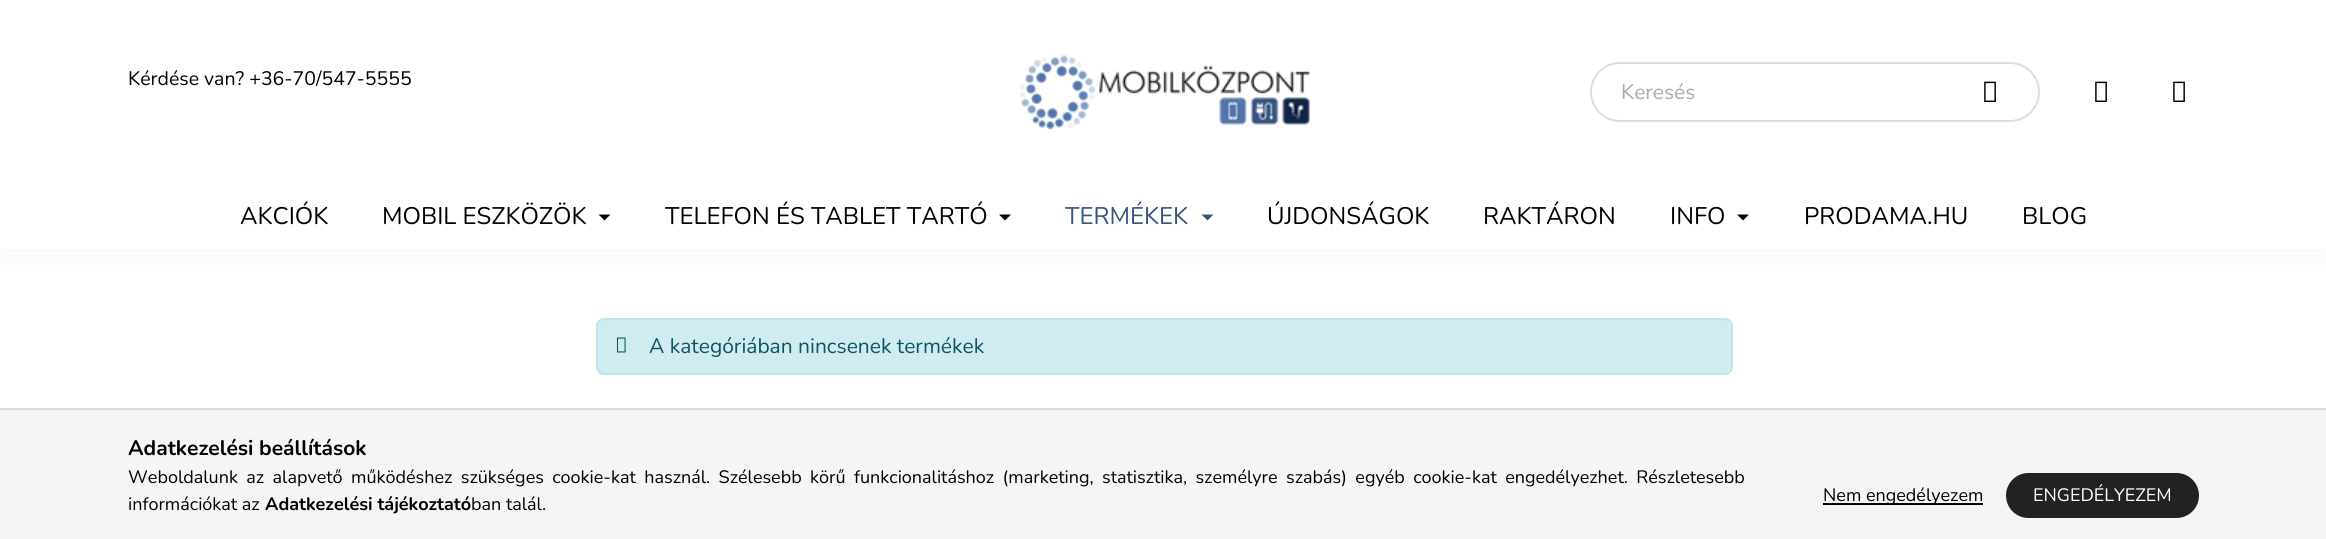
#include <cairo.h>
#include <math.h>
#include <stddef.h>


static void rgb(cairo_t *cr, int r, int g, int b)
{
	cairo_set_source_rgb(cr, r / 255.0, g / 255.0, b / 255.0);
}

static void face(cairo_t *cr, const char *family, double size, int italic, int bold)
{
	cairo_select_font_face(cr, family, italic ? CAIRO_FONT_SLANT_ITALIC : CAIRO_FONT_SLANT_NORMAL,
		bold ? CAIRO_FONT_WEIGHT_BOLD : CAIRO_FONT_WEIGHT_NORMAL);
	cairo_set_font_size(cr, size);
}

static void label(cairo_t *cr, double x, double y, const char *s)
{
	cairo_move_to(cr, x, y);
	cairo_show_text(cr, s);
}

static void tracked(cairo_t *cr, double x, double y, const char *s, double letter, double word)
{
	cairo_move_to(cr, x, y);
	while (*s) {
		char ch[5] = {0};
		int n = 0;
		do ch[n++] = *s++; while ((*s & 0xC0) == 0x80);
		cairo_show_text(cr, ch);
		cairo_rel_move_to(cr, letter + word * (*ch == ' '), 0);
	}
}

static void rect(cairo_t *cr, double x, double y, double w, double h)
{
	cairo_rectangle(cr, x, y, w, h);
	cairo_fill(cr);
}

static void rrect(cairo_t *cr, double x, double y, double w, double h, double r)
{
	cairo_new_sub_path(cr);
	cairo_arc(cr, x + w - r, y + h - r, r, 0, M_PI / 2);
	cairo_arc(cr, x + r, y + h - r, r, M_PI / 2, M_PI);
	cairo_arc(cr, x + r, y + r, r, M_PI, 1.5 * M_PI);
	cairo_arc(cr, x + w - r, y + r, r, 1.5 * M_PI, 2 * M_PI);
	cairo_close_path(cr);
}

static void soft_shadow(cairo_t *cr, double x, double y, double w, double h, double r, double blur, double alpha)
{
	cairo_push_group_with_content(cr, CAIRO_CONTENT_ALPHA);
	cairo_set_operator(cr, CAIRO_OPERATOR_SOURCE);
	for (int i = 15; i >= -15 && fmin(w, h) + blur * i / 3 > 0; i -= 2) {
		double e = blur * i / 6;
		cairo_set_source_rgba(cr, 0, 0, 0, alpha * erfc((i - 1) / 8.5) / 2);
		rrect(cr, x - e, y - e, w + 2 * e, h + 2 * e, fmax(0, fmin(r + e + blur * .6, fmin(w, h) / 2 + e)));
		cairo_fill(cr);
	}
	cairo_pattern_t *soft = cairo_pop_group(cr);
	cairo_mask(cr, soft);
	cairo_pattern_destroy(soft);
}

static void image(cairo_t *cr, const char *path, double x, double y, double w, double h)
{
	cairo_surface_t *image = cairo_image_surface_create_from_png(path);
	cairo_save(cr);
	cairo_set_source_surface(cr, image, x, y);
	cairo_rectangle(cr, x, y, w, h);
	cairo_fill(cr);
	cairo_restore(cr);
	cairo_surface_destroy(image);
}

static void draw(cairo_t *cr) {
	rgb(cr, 255, 255, 255);
	cairo_paint(cr);
	rgb(cr, 0, 0, 0);
	soft_shadow(cr, 0, 0, 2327, 249, 0, 15, 0.05);
	rgb(cr, 255, 255, 255);
	rect(cr, 0, 0, 2326, 249);
	face(cr, "Nunito", 19.5, 0, 0);
	rgb(cr, 0, 0, 0);
	label(cr, 128, 85, "Kérdése van? +36-70/547-5555");
	image(cr, "image0.png", 1020, 55, 290, 75);
	rrect(cr, 1591, 63, 448, 58, 29);
	rgb(cr, 221, 221, 221);
	cairo_stroke(cr);
	face(cr, "Nunito", 21, 0, 0);
	rgb(cr, 170, 170, 170);
	label(cr, 1621, 99, "Keresés");
	image(cr, "image1.png", 1984, 81, 12, 21);
	image(cr, "image1.png", 2095, 81, 12, 21);
	image(cr, "image1.png", 2173, 81, 12, 21);
	face(cr, "Nunito", 24, 0, 0);
	rgb(cr, 0, 0, 0);
	label(cr, 240, 224, "AKCIÓK");
	label(cr, 382, 224, "MOBIL ESZKÖZÖK");
	cairo_new_path(cr);
	cairo_move_to(cr, 598.5, 214.5);
	cairo_line_to(cr, 610.5, 214.5);
	cairo_line_to(cr, 604.5, 220.5);
	cairo_close_path(cr);
	cairo_fill(cr);
	label(cr, 665, 224, "TELEFON ÉS TABLET TARTÓ");
	cairo_new_path(cr);
	cairo_move_to(cr, 999, 214.5);
	cairo_line_to(cr, 1011, 214.5);
	cairo_line_to(cr, 1005, 220.5);
	cairo_close_path(cr);
	cairo_fill(cr);
	rgb(cr, 56, 83, 128);
	label(cr, 1065, 224, "TERMÉKEK");
	cairo_new_path(cr);
	cairo_move_to(cr, 1201.5, 214.5);
	cairo_line_to(cr, 1213.5, 214.5);
	cairo_line_to(cr, 1207.5, 220.5);
	cairo_close_path(cr);
	cairo_fill(cr);
	rgb(cr, 0, 0, 0);
	label(cr, 1267, 224, "ÚJDONSÁGOK");
	label(cr, 1483, 224, "RAKTÁRON");
	label(cr, 1670, 224, "INFO");
	cairo_new_path(cr);
	cairo_move_to(cr, 1737, 214.5);
	cairo_line_to(cr, 1749, 214.5);
	cairo_line_to(cr, 1743, 220.5);
	cairo_close_path(cr);
	cairo_fill(cr);
	label(cr, 1804, 224, "PRODAMA.HU");
	label(cr, 2022, 224, "BLOG");
	rgb(cr, 209, 236, 241);
	rrect(cr, 597, 319, 1135, 55, 7);
	cairo_fill_preserve(cr);
	rgb(cr, 190, 229, 235);
	cairo_stroke(cr);
	image(cr, "image2.png", 616, 337, 10, 16);
	face(cr, "Nunito", 21, 0, 0);
	rgb(cr, 12, 84, 96);
	label(cr, 649, 353, "A kategóriában nincsenek termékek");
	rgb(cr, 245, 245, 245);
	rect(cr, 0, 410, 2326, 129);
	rgb(cr, 221, 221, 221);
	rect(cr, 0, 408, 2326, 2);
	face(cr, "Nunito", 21, 0, 1);
	rgb(cr, 0, 0, 0);
	label(cr, 128, 455, "Adatkezelési beállítások");
	face(cr, "Nunito", 18, 0, 0);
	tracked(cr, 128, 483, "Weboldalunk az alapvető működéshez szükséges cookie-kat használ. Szélesebb körű funkcionalitáshoz (marketing, statisztika, személyre szabás) egyéb cookie-kat engedélyezhet. Részletesebb", 0, 3.75);
	label(cr, 128, 510, "információkat az");
	face(cr, "Nunito", 18, 0, 1);
	label(cr, 265, 510, "Adatkezelési tájékoztató");
	face(cr, "Nunito", 18, 0, 0);
	label(cr, 471, 510, "ban talál.");
	rect(cr, 1823, 503, 160, 2);
	label(cr, 1823, 501, "Nem engedélyezem");
	rgb(cr, 34, 34, 34);
	rrect(cr, 2007, 474, 191, 43, 21.5);
	cairo_fill_preserve(cr);
	cairo_stroke(cr);
	rgb(cr, 255, 255, 255);
	label(cr, 2033, 501, "ENGEDÉLYEZEM");
}

int main(void) {
	cairo_surface_t *surface = cairo_image_surface_create(CAIRO_FORMAT_RGB24, 2326, 539);
	cairo_t *cr = cairo_create(surface);
	cairo_font_options_t *options = cairo_font_options_create();
	cairo_font_options_set_hint_metrics(options, CAIRO_HINT_METRICS_OFF);
	cairo_font_options_set_hint_style(options, CAIRO_HINT_STYLE_NONE);
	cairo_set_font_options(cr, options);
	cairo_set_miter_limit(cr, 4);
	draw(cr);
	cairo_surface_write_to_png(surface, "render.png");
	cairo_font_options_destroy(options);
	cairo_destroy(cr);
	cairo_surface_destroy(surface);
	return 0;
}
